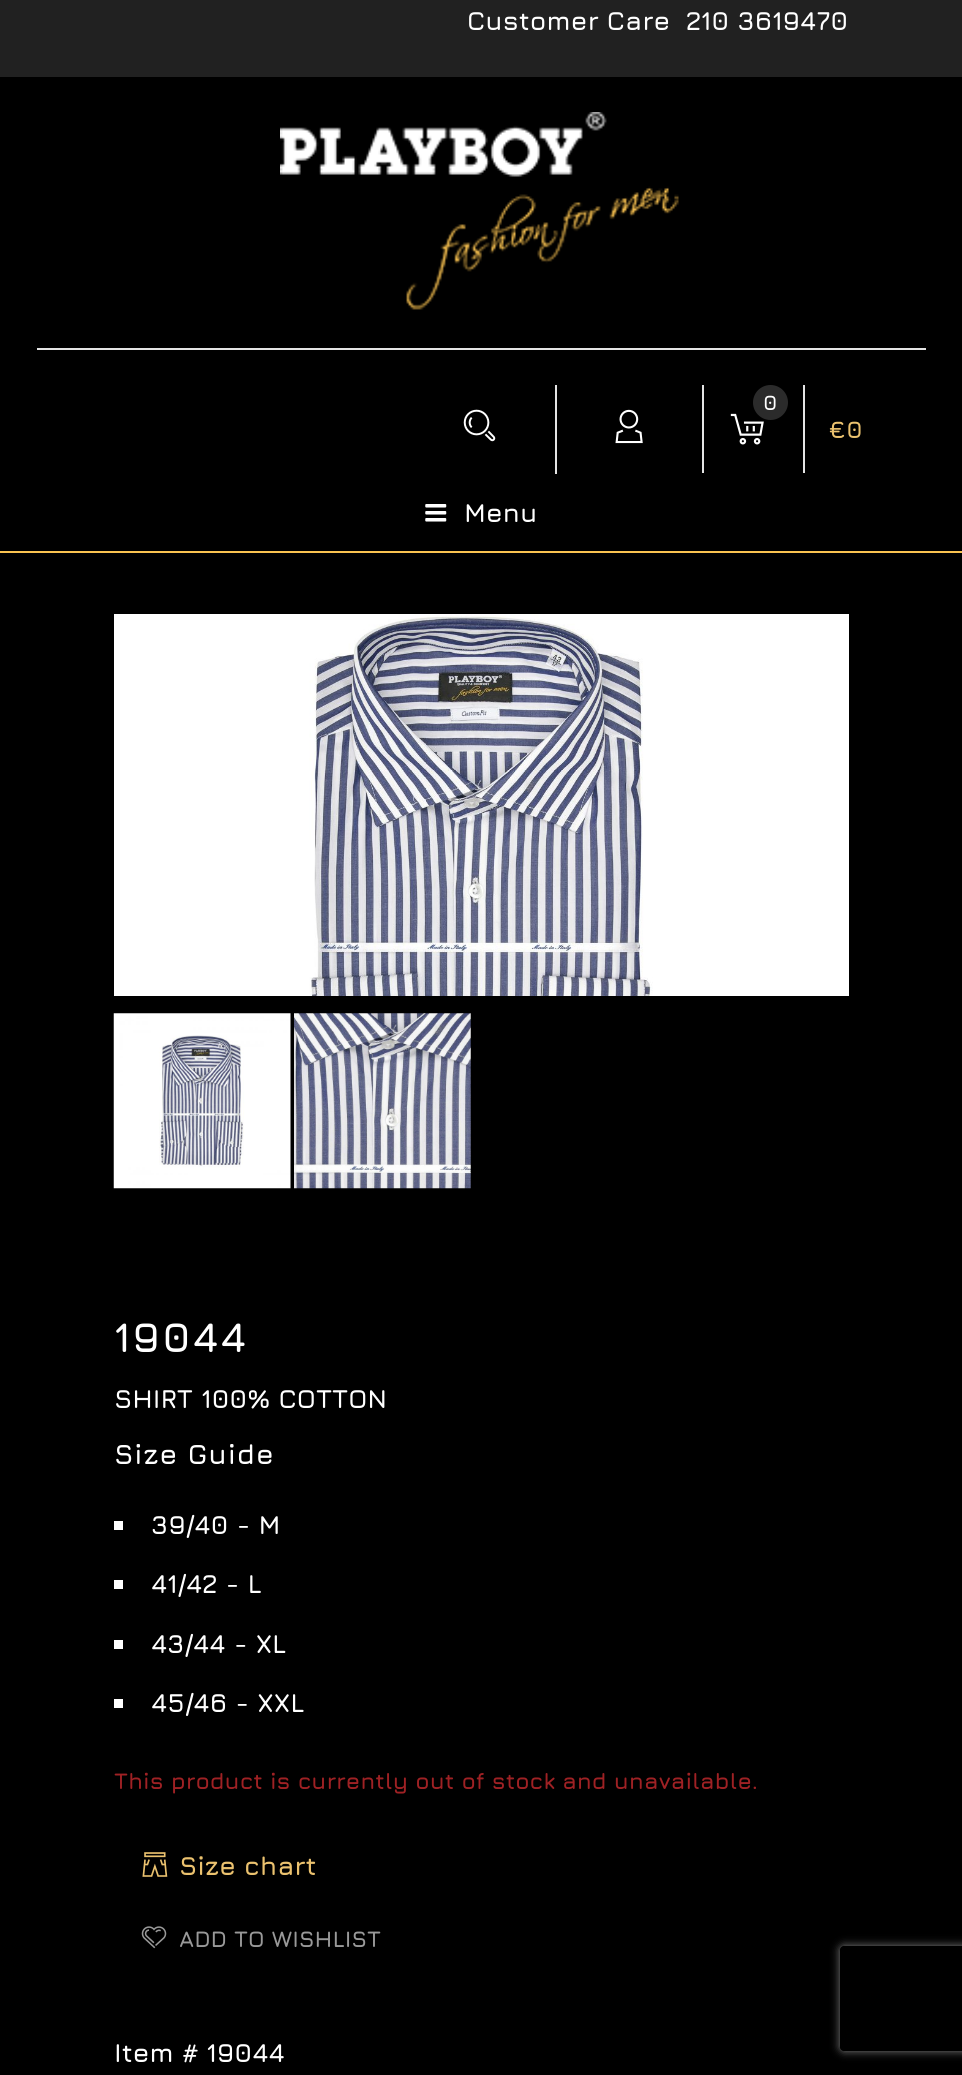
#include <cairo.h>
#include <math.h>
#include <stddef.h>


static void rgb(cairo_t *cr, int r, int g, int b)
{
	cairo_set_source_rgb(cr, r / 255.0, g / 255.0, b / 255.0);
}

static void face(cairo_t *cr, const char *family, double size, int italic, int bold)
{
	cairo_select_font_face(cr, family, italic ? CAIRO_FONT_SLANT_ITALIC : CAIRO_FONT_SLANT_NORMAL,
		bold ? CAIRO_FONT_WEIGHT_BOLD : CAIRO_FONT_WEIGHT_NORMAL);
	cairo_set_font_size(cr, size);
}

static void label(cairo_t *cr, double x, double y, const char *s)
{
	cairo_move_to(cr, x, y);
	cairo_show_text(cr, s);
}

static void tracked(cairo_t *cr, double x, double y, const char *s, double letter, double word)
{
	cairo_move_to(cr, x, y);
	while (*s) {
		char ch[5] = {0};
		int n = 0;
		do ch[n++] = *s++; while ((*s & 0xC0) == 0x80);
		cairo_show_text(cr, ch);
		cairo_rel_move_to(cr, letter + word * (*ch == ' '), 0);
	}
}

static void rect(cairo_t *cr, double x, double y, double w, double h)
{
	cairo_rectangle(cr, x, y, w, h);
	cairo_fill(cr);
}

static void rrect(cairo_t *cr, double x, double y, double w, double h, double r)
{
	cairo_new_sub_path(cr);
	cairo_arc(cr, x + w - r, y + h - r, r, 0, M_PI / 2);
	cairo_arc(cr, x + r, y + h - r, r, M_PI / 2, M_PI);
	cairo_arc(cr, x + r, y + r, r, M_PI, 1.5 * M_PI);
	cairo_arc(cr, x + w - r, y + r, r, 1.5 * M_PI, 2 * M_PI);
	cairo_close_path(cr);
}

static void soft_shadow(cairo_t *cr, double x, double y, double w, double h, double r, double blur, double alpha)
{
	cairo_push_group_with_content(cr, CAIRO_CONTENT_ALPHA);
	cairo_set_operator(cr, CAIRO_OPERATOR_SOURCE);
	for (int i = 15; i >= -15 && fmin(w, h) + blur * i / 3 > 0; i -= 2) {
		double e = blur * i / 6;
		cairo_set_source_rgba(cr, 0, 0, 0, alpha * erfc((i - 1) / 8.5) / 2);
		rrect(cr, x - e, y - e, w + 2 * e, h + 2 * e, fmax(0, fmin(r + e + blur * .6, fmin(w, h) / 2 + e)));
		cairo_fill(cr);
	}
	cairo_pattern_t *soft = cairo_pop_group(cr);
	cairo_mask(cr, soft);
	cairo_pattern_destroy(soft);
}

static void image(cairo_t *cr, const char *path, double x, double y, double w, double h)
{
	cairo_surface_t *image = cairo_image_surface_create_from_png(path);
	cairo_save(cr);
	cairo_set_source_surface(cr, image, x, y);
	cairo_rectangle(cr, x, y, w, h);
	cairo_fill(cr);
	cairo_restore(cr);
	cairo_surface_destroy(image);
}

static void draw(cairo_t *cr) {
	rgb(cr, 0, 0, 0);
	cairo_paint(cr);
	rgb(cr, 33, 33, 33);
	rect(cr, 0, 0, 962, 77);
	face(cr, "Jura", 26.25, 0, 1);
	rgb(cr, 255, 255, 255);
	label(cr, 467, 30, "Customer Care");
	label(cr, 686, 30, "210 3619470");
	image(cr, "image0.png", 280, 112, 399, 198);
	rgb(cr, 228, 228, 228);
	rect(cr, 37, 348, 889, 2);
	rect(cr, 555, 385, 2, 89);
	image(cr, "image1.png", 463, 409, 33, 33);
	rect(cr, 702, 385, 2, 88);
	image(cr, "image2.png", 615, 409, 28, 35);
	image(cr, "image3.png", 730, 413, 34, 32);
	rgb(cr, 43, 43, 43);
	cairo_arc(cr, 770.5, 402.5, 17.5, 0, 2 * M_PI);
	cairo_fill(cr);
	face(cr, "Jura", 21, 0, 1);
	rgb(cr, 255, 255, 255);
	label(cr, 763, 410, "0");
	rgb(cr, 228, 228, 228);
	rect(cr, 803, 385, 2, 88);
	face(cr, "Jura", 24, 0, 1);
	rgb(cr, 235, 194, 111);
	tracked(cr, 829, 438, "€0", 0.9, 0);
	rgb(cr, 250, 195, 80);
	rect(cr, 0, 551, 962, 2);
	image(cr, "image4.png", 425, 504, 22, 18);
	face(cr, "Jura", 26.25, 0, 1);
	rgb(cr, 255, 255, 255);
	label(cr, 464, 522, "Menu");
	image(cr, "image5.png", 114, 614, 735, 382);
	image(cr, "image6.png", 113, 1013, 178, 176);
	image(cr, "image7.png", 294, 1013, 177, 176);
	face(cr, "Jura", 42, 0, 1);
	tracked(cr, 114, 1352, "19044", 1.75, 0);
	face(cr, "Jura", 26.25, 0, 1);
	label(cr, 114, 1408, "SHIRT 100% COTTON");
	face(cr, "Jura", 28, 0, 1);
	tracked(cr, 114, 1464, "Size Guide", 0.9, 0);
	rect(cr, 114, 1521, 9, 9);
	face(cr, "Jura", 26.25, 0, 1);
	label(cr, 151, 1534, "39/40 - M");
	rect(cr, 114, 1580, 9, 9);
	label(cr, 151, 1593, "41/42 - L");
	rect(cr, 114, 1640, 9, 9);
	label(cr, 151, 1653, "43/44 - XL");
	rect(cr, 114, 1699, 9, 9);
	label(cr, 151, 1712, "45/46 - XXL");
	face(cr, "Jura", 22.75, 0, 1);
	rgb(cr, 159, 33, 36);
	label(cr, 114, 1789, "This product is currently out of stock and unavailable.");
	image(cr, "image8.png", 142, 1852, 26, 25);
	face(cr, "Jura", 26.25, 0, 1);
	rgb(cr, 235, 194, 111);
	label(cr, 179, 1875, "Size chart");
	image(cr, "image9.png", 141, 1926, 26, 23);
	face(cr, "Jura", 22.75, 0, 1);
	rgb(cr, 153, 153, 153);
	label(cr, 179, 1947, "ADD TO WISHLIST");
	face(cr, "Jura", 26.25, 0, 1);
	rgb(cr, 255, 255, 255);
	label(cr, 114, 2062, "Item # 19044");
	cairo_save(cr);
	cairo_set_fill_rule(cr, CAIRO_FILL_RULE_EVEN_ODD);
	cairo_new_path(cr);
	cairo_move_to(cr, 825, 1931);
	cairo_line_to(cr, 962, 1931);
	cairo_line_to(cr, 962, 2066);
	cairo_line_to(cr, 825, 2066);
	cairo_close_path(cr);
	cairo_move_to(cr, 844, 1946);
	cairo_line_to(cr, 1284, 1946);
	cairo_curve_to(cr, 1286, 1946, 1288, 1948, 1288, 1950);
	cairo_line_to(cr, 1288, 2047);
	cairo_curve_to(cr, 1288, 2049, 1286, 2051, 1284, 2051);
	cairo_line_to(cr, 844, 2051);
	cairo_curve_to(cr, 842, 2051, 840, 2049, 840, 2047);
	cairo_line_to(cr, 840, 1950);
	cairo_curve_to(cr, 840, 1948, 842, 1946, 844, 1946);
	cairo_close_path(cr);
	cairo_clip(cr);
	rgb(cr, 128, 128, 128);
	soft_shadow(cr, 840, 1946, 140, 105, 4, 4.5, 1);
	cairo_restore(cr);
}

int main(void) {
	cairo_surface_t *surface = cairo_image_surface_create(CAIRO_FORMAT_RGB24, 962, 2075);
	cairo_t *cr = cairo_create(surface);
	cairo_font_options_t *options = cairo_font_options_create();
	cairo_font_options_set_hint_metrics(options, CAIRO_HINT_METRICS_OFF);
	cairo_font_options_set_hint_style(options, CAIRO_HINT_STYLE_NONE);
	cairo_set_font_options(cr, options);
	cairo_set_miter_limit(cr, 4);
	draw(cr);
	cairo_surface_write_to_png(surface, "render.png");
	cairo_font_options_destroy(options);
	cairo_destroy(cr);
	cairo_surface_destroy(surface);
	return 0;
}
